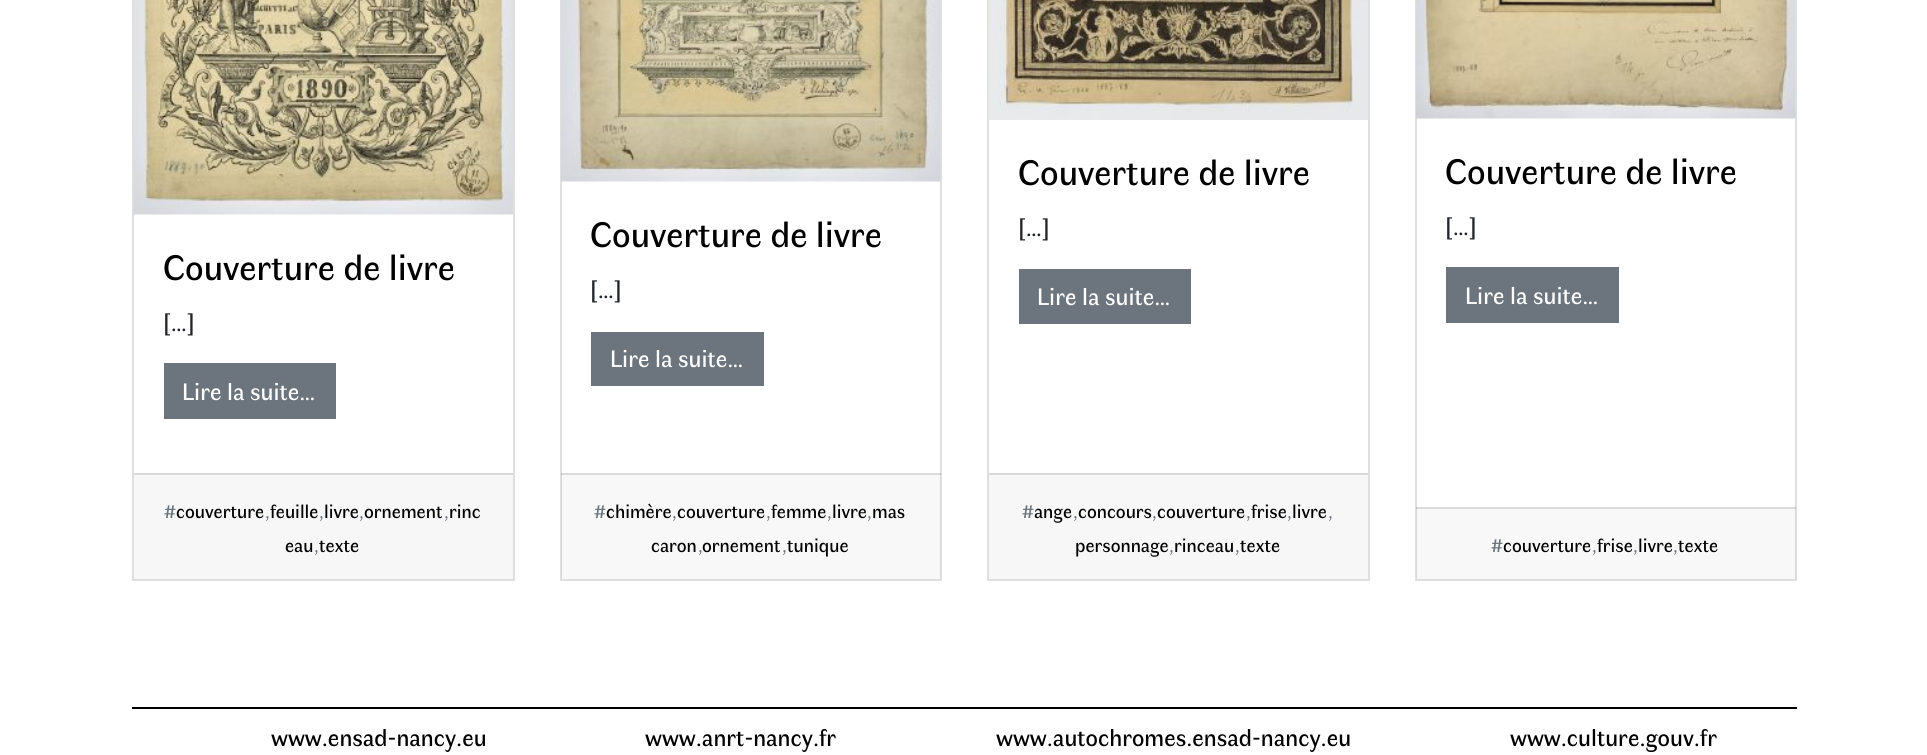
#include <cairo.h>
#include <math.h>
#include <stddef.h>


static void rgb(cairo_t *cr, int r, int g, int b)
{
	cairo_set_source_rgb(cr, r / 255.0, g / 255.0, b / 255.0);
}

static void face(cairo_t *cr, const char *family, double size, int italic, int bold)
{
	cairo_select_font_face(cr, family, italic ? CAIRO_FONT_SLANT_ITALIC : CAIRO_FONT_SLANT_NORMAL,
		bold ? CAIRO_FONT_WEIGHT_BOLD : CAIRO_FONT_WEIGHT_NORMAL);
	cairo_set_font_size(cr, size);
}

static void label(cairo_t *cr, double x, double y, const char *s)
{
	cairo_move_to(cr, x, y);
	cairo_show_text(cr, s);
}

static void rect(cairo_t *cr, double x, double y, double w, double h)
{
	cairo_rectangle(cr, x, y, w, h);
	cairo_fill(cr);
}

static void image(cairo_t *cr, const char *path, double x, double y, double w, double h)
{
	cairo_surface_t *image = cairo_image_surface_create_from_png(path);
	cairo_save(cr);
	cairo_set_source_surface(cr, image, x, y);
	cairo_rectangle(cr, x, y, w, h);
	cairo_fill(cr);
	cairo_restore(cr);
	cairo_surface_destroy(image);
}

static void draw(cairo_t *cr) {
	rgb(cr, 255, 255, 255);
	cairo_paint(cr);
	cairo_rectangle(cr, 133, -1, 381, 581);
	rgb(cr, 223, 223, 223);
	cairo_stroke(cr);
	image(cr, "image0.png", 133, 0, 380, 215);
	face(cr, "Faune", 36, 0, 0);
	rgb(cr, 0, 0, 0);
	label(cr, 163, 280, "Couverture de livre");
	face(cr, "Faune", 24, 0, 0);
	rgb(cr, 33, 37, 41);
	label(cr, 163, 331, "[…]");
	rgb(cr, 108, 117, 125);
	rect(cr, 164, 363, 172, 56);
	rgb(cr, 255, 255, 255);
	label(cr, 182, 400, "Lire la suite…");
	rgb(cr, 247, 247, 247);
	rect(cr, 134, 475, 379, 104);
	rgb(cr, 216, 216, 216);
	rect(cr, 134, 473, 379, 2);
	face(cr, "Faune", 19, 0, 0);
	rgb(cr, 108, 117, 125);
	label(cr, 164, 518, "#");
	rgb(cr, 0, 0, 0);
	label(cr, 176, 518, "couverture");
	rgb(cr, 108, 117, 125);
	label(cr, 265, 518, ",");
	rgb(cr, 0, 0, 0);
	label(cr, 270, 518, "feuille");
	rgb(cr, 108, 117, 125);
	label(cr, 319, 518, ",");
	rgb(cr, 0, 0, 0);
	label(cr, 324, 518, "livre");
	rgb(cr, 108, 117, 125);
	label(cr, 359, 518, ",");
	rgb(cr, 0, 0, 0);
	label(cr, 364, 518, "ornement");
	rgb(cr, 108, 117, 125);
	label(cr, 444, 518, ",");
	rgb(cr, 0, 0, 0);
	label(cr, 449, 518, "rinc");
	label(cr, 285, 552, "eau");
	rgb(cr, 108, 117, 125);
	label(cr, 314, 552, ",");
	rgb(cr, 0, 0, 0);
	label(cr, 319, 552, "texte");
	cairo_rectangle(cr, 561, -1, 380, 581);
	rgb(cr, 223, 223, 223);
	cairo_stroke(cr);
	image(cr, "image1.png", 561, 0, 380, 182);
	face(cr, "Faune", 36, 0, 0);
	rgb(cr, 0, 0, 0);
	label(cr, 590, 247, "Couverture de livre");
	face(cr, "Faune", 24, 0, 0);
	rgb(cr, 33, 37, 41);
	label(cr, 590, 298, "[…]");
	rgb(cr, 108, 117, 125);
	rect(cr, 591, 332, 173, 54);
	rgb(cr, 255, 255, 255);
	label(cr, 610, 367, "Lire la suite…");
	cairo_set_source_rgba(cr, 0, 0, 0, 0.03);
	rect(cr, 561, 473, 380, 106);
	cairo_set_source_rgba(cr, 0, 0, 0, 0.12);
	rect(cr, 561, 473, 380, 2);
	face(cr, "Faune", 19, 0, 0);
	rgb(cr, 108, 117, 125);
	label(cr, 594, 518, "#");
	rgb(cr, 0, 0, 0);
	label(cr, 606, 518, "chimère");
	rgb(cr, 108, 117, 125);
	label(cr, 672, 518, ",");
	rgb(cr, 0, 0, 0);
	label(cr, 677, 518, "couverture");
	rgb(cr, 108, 117, 125);
	label(cr, 766, 518, ",");
	rgb(cr, 0, 0, 0);
	label(cr, 771, 518, "femme");
	rgb(cr, 108, 117, 125);
	label(cr, 827, 518, ",");
	rgb(cr, 0, 0, 0);
	label(cr, 832, 518, "livre");
	rgb(cr, 108, 117, 125);
	label(cr, 867, 518, ",");
	rgb(cr, 0, 0, 0);
	label(cr, 872, 518, "mas");
	label(cr, 651, 552, "caron");
	rgb(cr, 108, 117, 125);
	label(cr, 698, 552, ",");
	rgb(cr, 0, 0, 0);
	label(cr, 702, 552, "ornement");
	rgb(cr, 108, 117, 125);
	label(cr, 782, 552, ",");
	rgb(cr, 0, 0, 0);
	label(cr, 787, 552, "tunique");
	cairo_rectangle(cr, 988, -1, 381, 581);
	rgb(cr, 223, 223, 223);
	cairo_stroke(cr);
	image(cr, "image2.png", 988, 0, 380, 120);
	face(cr, "Faune", 36, 0, 0);
	rgb(cr, 0, 0, 0);
	label(cr, 1018, 185, "Couverture de livre");
	face(cr, "Faune", 24, 0, 0);
	rgb(cr, 33, 37, 41);
	label(cr, 1018, 236, "[…]");
	rgb(cr, 108, 117, 125);
	rect(cr, 1019, 269, 172, 55);
	rgb(cr, 255, 255, 255);
	label(cr, 1037, 305, "Lire la suite…");
	rgb(cr, 247, 247, 247);
	rect(cr, 989, 475, 379, 104);
	rgb(cr, 216, 216, 216);
	rect(cr, 989, 473, 379, 2);
	face(cr, "Faune", 19, 0, 0);
	rgb(cr, 108, 117, 125);
	label(cr, 1022, 518, "#");
	rgb(cr, 0, 0, 0);
	label(cr, 1034, 518, "ange");
	rgb(cr, 108, 117, 125);
	label(cr, 1073, 518, ",");
	rgb(cr, 0, 0, 0);
	label(cr, 1078, 518, "concours");
	rgb(cr, 108, 117, 125);
	label(cr, 1152, 518, ",");
	rgb(cr, 0, 0, 0);
	label(cr, 1157, 518, "couverture");
	rgb(cr, 108, 117, 125);
	label(cr, 1246, 518, ",");
	rgb(cr, 0, 0, 0);
	label(cr, 1251, 518, "frise");
	rgb(cr, 108, 117, 125);
	label(cr, 1287, 518, ",");
	rgb(cr, 0, 0, 0);
	label(cr, 1292, 518, "livre");
	rgb(cr, 108, 117, 125);
	label(cr, 1328, 518, ",");
	rgb(cr, 0, 0, 0);
	label(cr, 1075, 552, "personnage");
	rgb(cr, 108, 117, 125);
	label(cr, 1169, 552, ",");
	rgb(cr, 0, 0, 0);
	label(cr, 1174, 552, "rinceau");
	rgb(cr, 108, 117, 125);
	label(cr, 1235, 552, ",");
	rgb(cr, 0, 0, 0);
	label(cr, 1240, 552, "texte");
	cairo_rectangle(cr, 1416, -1, 380, 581);
	rgb(cr, 223, 223, 223);
	cairo_stroke(cr);
	image(cr, "image3.png", 1416, 0, 380, 119);
	face(cr, "Faune", 36, 0, 0);
	rgb(cr, 0, 0, 0);
	label(cr, 1445, 184, "Couverture de livre");
	face(cr, "Faune", 24, 0, 0);
	rgb(cr, 33, 37, 41);
	label(cr, 1445, 235, "[…]");
	rgb(cr, 108, 117, 125);
	rect(cr, 1446, 267, 173, 56);
	rgb(cr, 255, 255, 255);
	label(cr, 1465, 304, "Lire la suite…");
	cairo_set_source_rgba(cr, 0, 0, 0, 0.03);
	rect(cr, 1416, 507, 380, 72);
	cairo_set_source_rgba(cr, 0, 0, 0, 0.12);
	rect(cr, 1416, 507, 380, 2);
	face(cr, "Faune", 19, 0, 0);
	rgb(cr, 108, 117, 125);
	label(cr, 1491, 552, "#");
	rgb(cr, 0, 0, 0);
	label(cr, 1503, 552, "couverture");
	rgb(cr, 108, 117, 125);
	label(cr, 1592, 552, ",");
	rgb(cr, 0, 0, 0);
	label(cr, 1597, 552, "frise");
	rgb(cr, 108, 117, 125);
	label(cr, 1633, 552, ",");
	rgb(cr, 0, 0, 0);
	label(cr, 1638, 552, "livre");
	rgb(cr, 108, 117, 125);
	label(cr, 1673, 552, ",");
	rgb(cr, 0, 0, 0);
	label(cr, 1678, 552, "texte");
	rect(cr, 132, 707, 1665, 2);
	face(cr, "Faune", 24, 0, 0);
	label(cr, 271, 746, "www.ensad-nancy.eu");
	label(cr, 645, 746, "www.anrt-nancy.fr");
	label(cr, 996, 746, "www.autochromes.ensad-nancy.eu");
	label(cr, 1510, 746, "www.culture.gouv.fr");
}

int main(void) {
	cairo_surface_t *surface = cairo_image_surface_create(CAIRO_FORMAT_RGB24, 1927, 755);
	cairo_t *cr = cairo_create(surface);
	cairo_font_options_t *options = cairo_font_options_create();
	cairo_font_options_set_hint_metrics(options, CAIRO_HINT_METRICS_OFF);
	cairo_font_options_set_hint_style(options, CAIRO_HINT_STYLE_NONE);
	cairo_set_font_options(cr, options);
	cairo_set_miter_limit(cr, 4);
	draw(cr);
	cairo_surface_write_to_png(surface, "render.png");
	cairo_font_options_destroy(options);
	cairo_destroy(cr);
	cairo_surface_destroy(surface);
	return 0;
}
